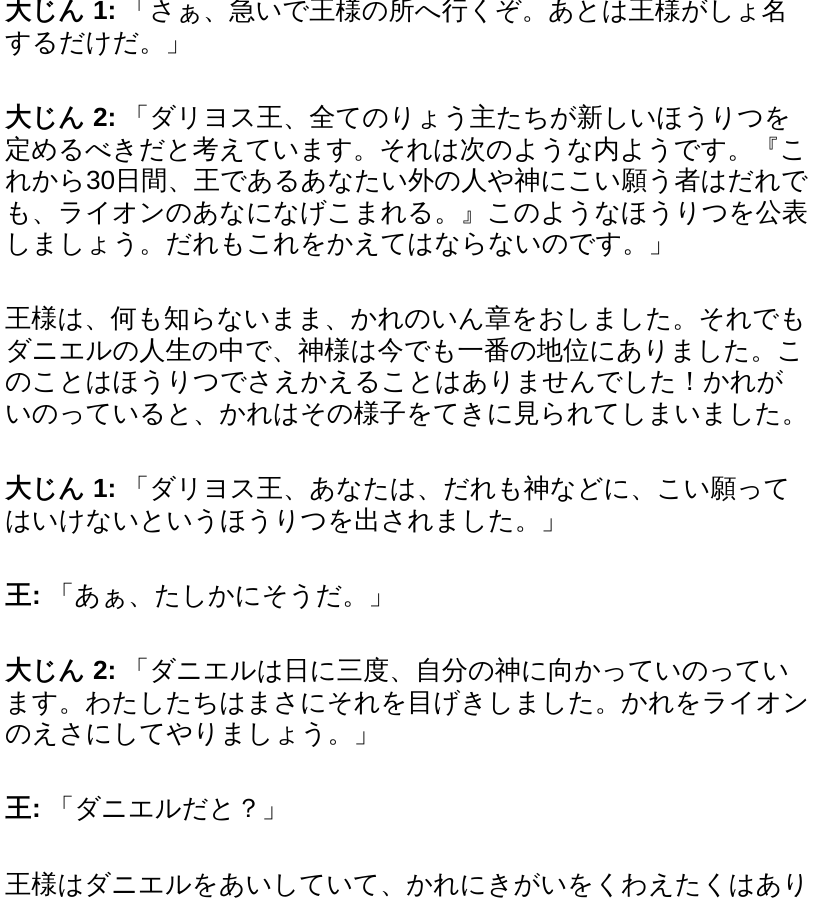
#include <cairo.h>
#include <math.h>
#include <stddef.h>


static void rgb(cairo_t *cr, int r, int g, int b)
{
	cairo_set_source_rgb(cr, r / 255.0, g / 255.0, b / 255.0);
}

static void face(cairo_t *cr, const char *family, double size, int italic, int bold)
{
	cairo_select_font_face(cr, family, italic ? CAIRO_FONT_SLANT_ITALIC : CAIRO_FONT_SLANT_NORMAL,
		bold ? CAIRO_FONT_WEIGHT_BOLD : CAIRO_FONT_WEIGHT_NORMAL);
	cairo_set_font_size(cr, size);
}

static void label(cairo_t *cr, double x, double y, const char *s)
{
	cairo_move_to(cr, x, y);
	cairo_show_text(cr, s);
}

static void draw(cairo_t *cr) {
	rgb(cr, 255, 255, 255);
	cairo_paint(cr);
	face(cr, "WenQuanYi Zen Hei", 26.25, 0, 1);
	rgb(cr, 0, 0, 0);
	label(cr, 5, 19, "大じん");
	face(cr, "Liberation Sans", 26.25, 0, 1);
	label(cr, 93, 19, "1:");
	face(cr, "WenQuanYi Zen Hei Medium", 26.25, 0, 0);
	label(cr, 123, 19, "「さぁ、急いで王様の所へ行くぞ。あとは王様がしょ名");
	label(cr, 5, 51, "するだけだ。」");
	face(cr, "WenQuanYi Zen Hei", 26.25, 0, 1);
	label(cr, 5, 126, "大じん");
	face(cr, "Liberation Sans", 26.25, 0, 1);
	label(cr, 93, 126, "2:");
	face(cr, "WenQuanYi Zen Hei Medium", 26.25, 0, 0);
	label(cr, 123, 126, "「ダリヨス王、全てのりょう主たちが新しいほうりつを");
	label(cr, 5, 158, "定めるべきだと考えています。それは次のような内ようです。『こ");
	label(cr, 5, 189, "れから");
	face(cr, "Liberation Sans", 26.25, 0, 0);
	label(cr, 86, 189, "30");
	face(cr, "WenQuanYi Zen Hei Medium", 26.25, 0, 0);
	label(cr, 115, 189, "日間、王であるあなたい外の人や神にこい願う者はだれで");
	label(cr, 5, 221, "も、ライオンのあなになげこまれる。』このようなほうりつを公表");
	label(cr, 5, 252, "しましょう。だれもこれをかえてはならないのです。」");
	label(cr, 5, 327, "王様は、何も知らないまま、かれのいん章をおしました。それでも");
	label(cr, 5, 359, "ダニエルの人生の中で、神様は今でも一番の地位にありました。こ");
	label(cr, 5, 390, "のことはほうりつでさえかえることはありませんでした！かれが");
	label(cr, 5, 422, "いのっていると、かれはその様子をてきに見られてしまいました。");
	face(cr, "WenQuanYi Zen Hei", 26.25, 0, 1);
	label(cr, 5, 497, "大じん");
	face(cr, "Liberation Sans", 26.25, 0, 1);
	label(cr, 93, 497, "1:");
	face(cr, "WenQuanYi Zen Hei Medium", 26.25, 0, 0);
	label(cr, 123, 497, "「ダリヨス王、あなたは、だれも神などに、こい願って");
	label(cr, 5, 529, "はいけないというほうりつを出されました。」");
	face(cr, "WenQuanYi Zen Hei", 26.25, 0, 1);
	label(cr, 5, 604, "王");
	face(cr, "Liberation Sans", 26.25, 0, 1);
	label(cr, 32, 604, ":");
	face(cr, "WenQuanYi Zen Hei Medium", 26.25, 0, 0);
	label(cr, 48, 604, "「あぁ、たしかにそうだ。」");
	face(cr, "WenQuanYi Zen Hei", 26.25, 0, 1);
	label(cr, 5, 679, "大じん");
	face(cr, "Liberation Sans", 26.25, 0, 1);
	label(cr, 93, 679, "2:");
	face(cr, "WenQuanYi Zen Hei Medium", 26.25, 0, 0);
	label(cr, 123, 679, "「ダニエルは日に三度、自分の神に向かっていのってい");
	label(cr, 5, 711, "ます。わたしたちはまさにそれを目げきしました。かれをライオン");
	label(cr, 5, 742, "のえさにしてやりましょう。」");
	face(cr, "WenQuanYi Zen Hei", 26.25, 0, 1);
	label(cr, 5, 817, "王");
	face(cr, "Liberation Sans", 26.25, 0, 1);
	label(cr, 32, 817, ":");
	face(cr, "WenQuanYi Zen Hei Medium", 26.25, 0, 0);
	label(cr, 48, 817, "「ダニエルだと？」");
	label(cr, 5, 893, "王様はダニエルをあいしていて、かれにきがいをくわえたくはあり");
}

int main(void) {
	cairo_surface_t *surface = cairo_image_surface_create(CAIRO_FORMAT_RGB24, 814, 910);
	cairo_t *cr = cairo_create(surface);
	cairo_font_options_t *options = cairo_font_options_create();
	cairo_font_options_set_hint_metrics(options, CAIRO_HINT_METRICS_OFF);
	cairo_font_options_set_hint_style(options, CAIRO_HINT_STYLE_NONE);
	cairo_set_font_options(cr, options);
	cairo_set_miter_limit(cr, 4);
	draw(cr);
	cairo_surface_write_to_png(surface, "render.png");
	cairo_font_options_destroy(options);
	cairo_destroy(cr);
	cairo_surface_destroy(surface);
	return 0;
}
